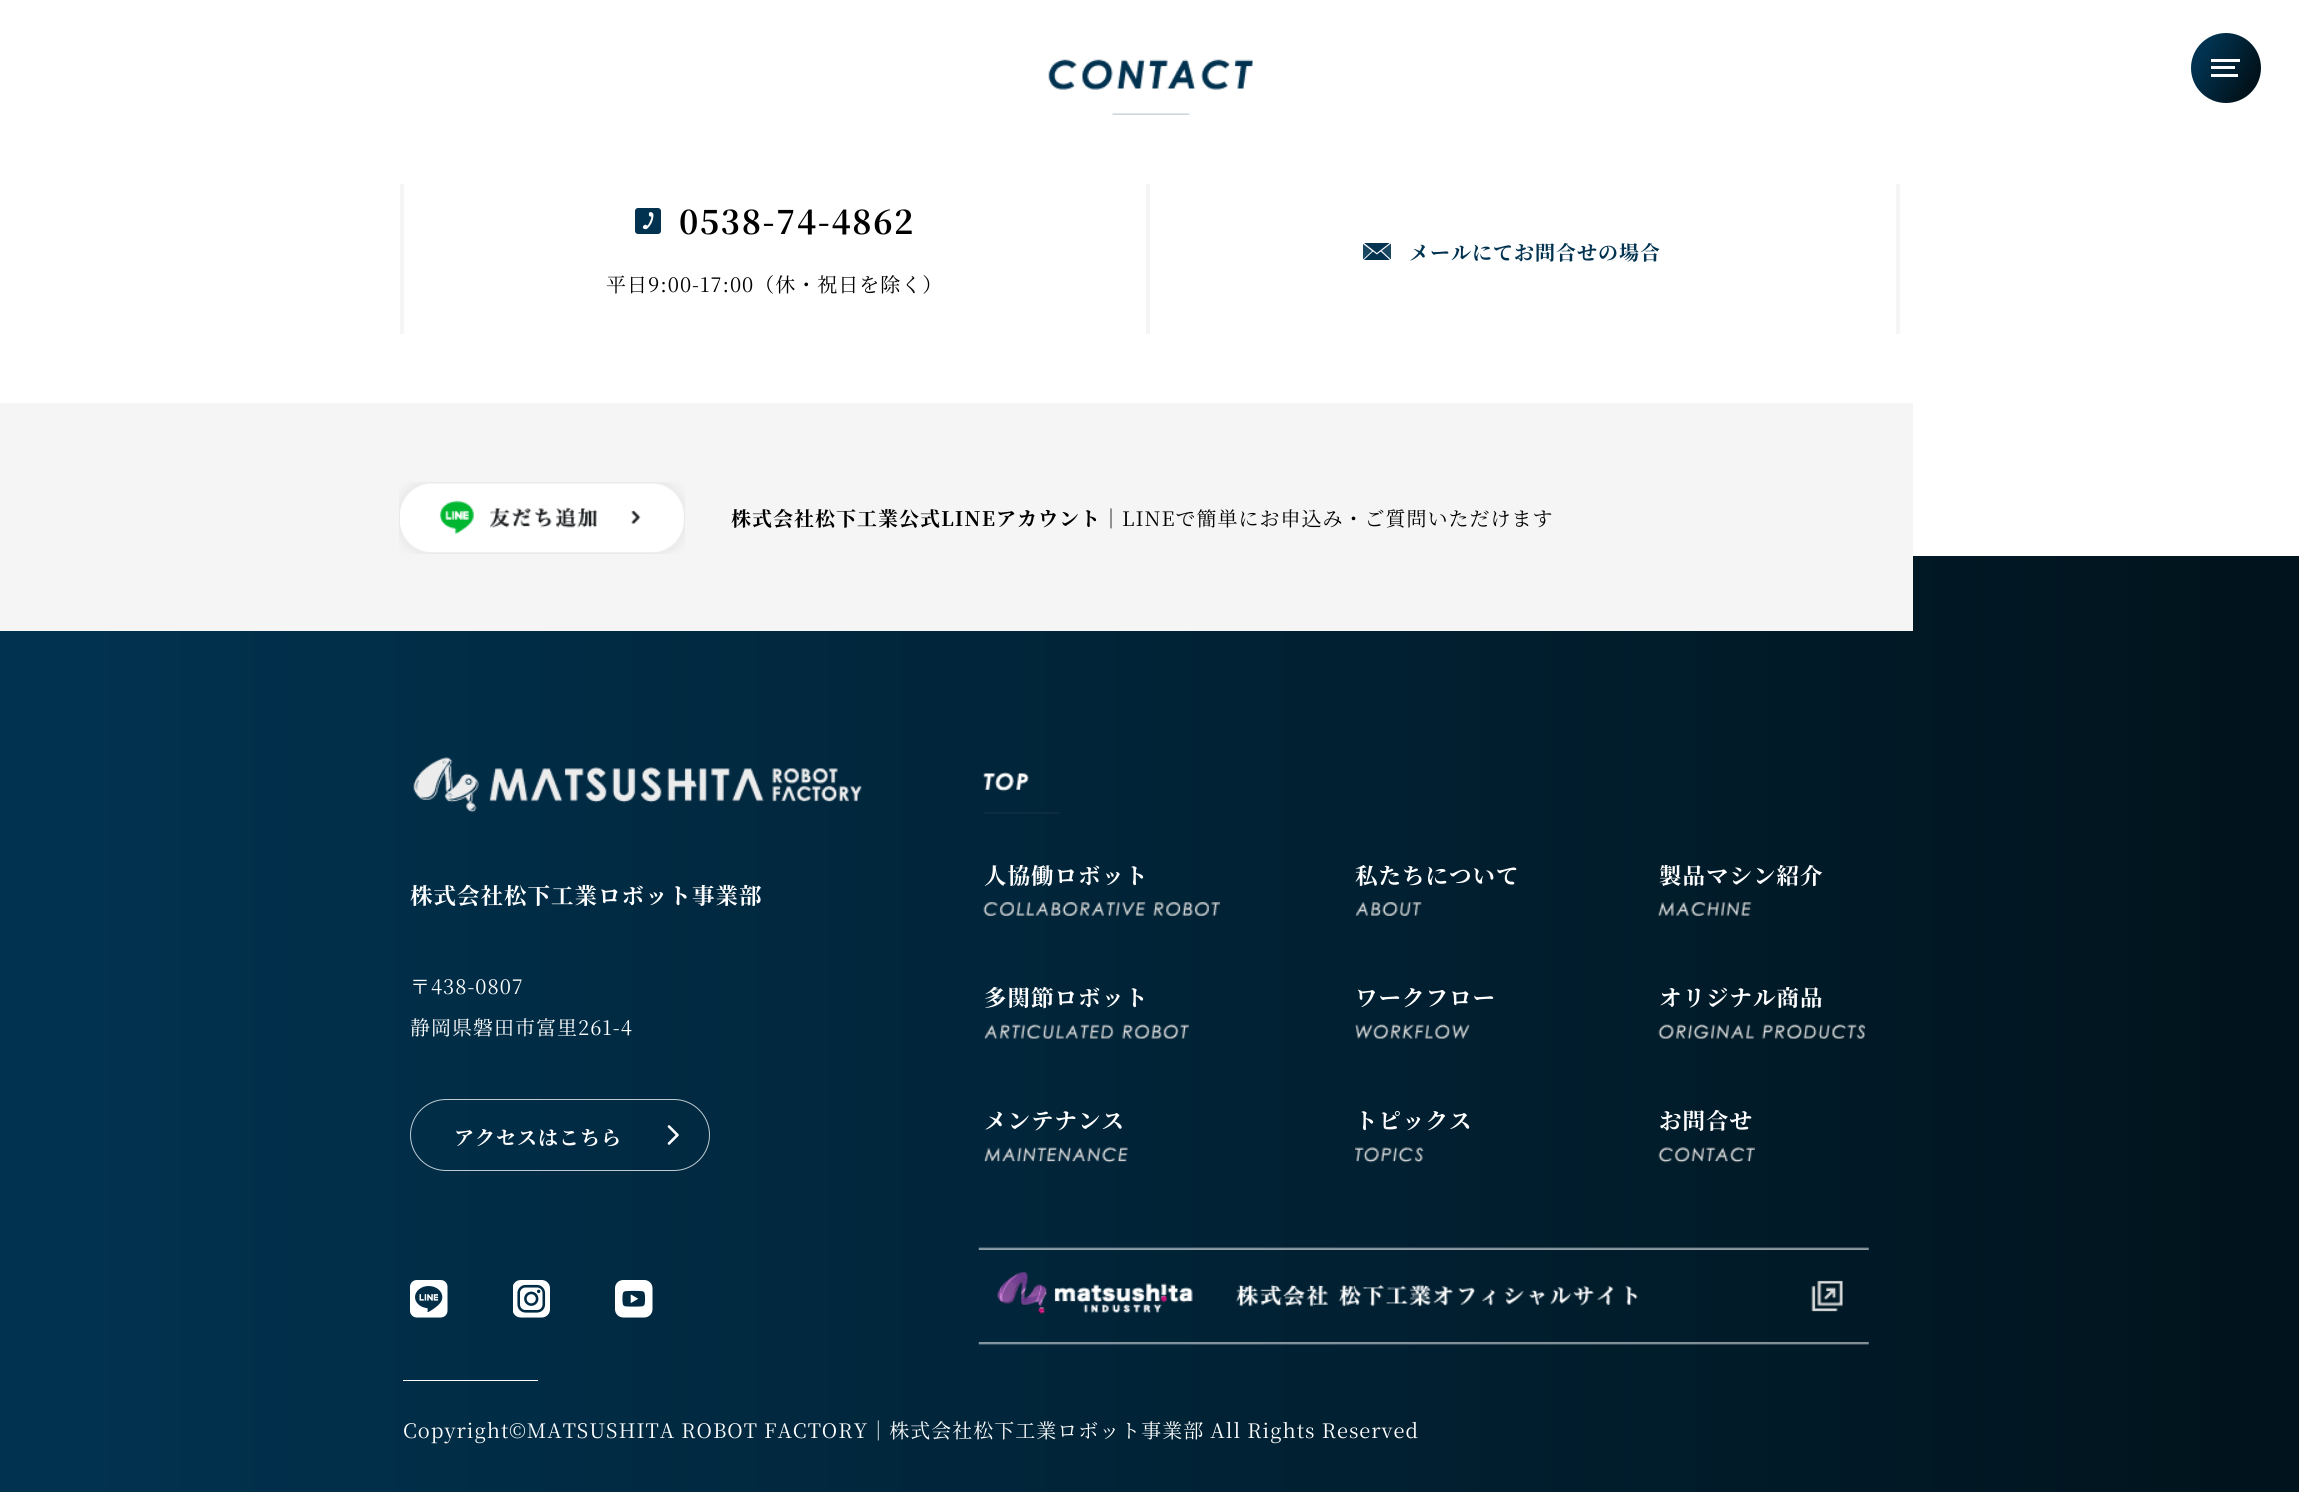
#include <cairo.h>
#include <math.h>
#include <stddef.h>


static void rgb(cairo_t *cr, int r, int g, int b)
{
	cairo_set_source_rgb(cr, r / 255.0, g / 255.0, b / 255.0);
}

static void face(cairo_t *cr, const char *family, double size, int italic, int bold)
{
	cairo_select_font_face(cr, family, italic ? CAIRO_FONT_SLANT_ITALIC : CAIRO_FONT_SLANT_NORMAL,
		bold ? CAIRO_FONT_WEIGHT_BOLD : CAIRO_FONT_WEIGHT_NORMAL);
	cairo_set_font_size(cr, size);
}

static void tracked(cairo_t *cr, double x, double y, const char *s, double letter, double word)
{
	cairo_move_to(cr, x, y);
	while (*s) {
		char ch[5] = {0};
		int n = 0;
		do ch[n++] = *s++; while ((*s & 0xC0) == 0x80);
		cairo_show_text(cr, ch);
		cairo_rel_move_to(cr, letter + word * (*ch == ' '), 0);
	}
}

static void rect(cairo_t *cr, double x, double y, double w, double h)
{
	cairo_rectangle(cr, x, y, w, h);
	cairo_fill(cr);
}

static void rrect(cairo_t *cr, double x, double y, double w, double h, double r)
{
	cairo_new_sub_path(cr);
	cairo_arc(cr, x + w - r, y + h - r, r, 0, M_PI / 2);
	cairo_arc(cr, x + r, y + h - r, r, M_PI / 2, M_PI);
	cairo_arc(cr, x + r, y + r, r, M_PI, 1.5 * M_PI);
	cairo_arc(cr, x + w - r, y + r, r, 1.5 * M_PI, 2 * M_PI);
	cairo_close_path(cr);
}

static void image(cairo_t *cr, const char *path, double x, double y, double w, double h)
{
	cairo_surface_t *image = cairo_image_surface_create_from_png(path);
	cairo_save(cr);
	cairo_set_source_surface(cr, image, x, y);
	cairo_rectangle(cr, x, y, w, h);
	cairo_fill(cr);
	cairo_restore(cr);
	cairo_surface_destroy(image);
}

static void draw(cairo_t *cr) {
	cairo_pattern_t *gradient;
	rgb(cr, 255, 255, 255);
	cairo_paint(cr);
	gradient = cairo_pattern_create_linear(2185, 44, 2268, 91);
	cairo_pattern_add_color_stop_rgba(gradient, 0.2, 0.004, 0.2, 0.318, 1);
	cairo_pattern_add_color_stop_rgba(gradient, 0.8, 0.004, 0.075, 0.11, 1);
	cairo_set_source(cr, gradient);
	cairo_pattern_destroy(gradient);
	cairo_arc(cr, 2226, 68, 35, 0, 2 * M_PI);
	cairo_fill(cr);
	rgb(cr, 255, 255, 255);
	rect(cr, 2211, 59, 29, 3);
	rect(cr, 2211, 66, 24, 3);
	rect(cr, 2211, 74, 27, 3);
	image(cr, "image0.png", 1048, 59, 205, 56);
	rgb(cr, 245, 245, 245);
	rect(cr, 1146, 184, 4, 150);
	rect(cr, 400, 184, 4, 150);
	image(cr, "image1.png", 635, 208, 26, 26);
	face(cr, "Noto Serif JP", 32.5, 0, 1);
	rgb(cr, 0, 0, 0);
	tracked(cr, 679, 234, "0538-74-4862", 1.6, 0);
	face(cr, "Noto Serif JP", 20, 0, 0);
	tracked(cr, 606, 292, "平日9:00-17:00（休・祝日を除く）", 1, 0);
	rgb(cr, 245, 245, 245);
	rect(cr, 1896, 184, 4, 150);
	image(cr, "image2.png", 1363, 243, 28, 17);
	face(cr, "Noto Serif JP", 20, 0, 1);
	rgb(cr, 1, 51, 81);
	tracked(cr, 1409, 260, "メールにてお問合せの場合", 1, 0);
	gradient = cairo_pattern_create_linear(0, 1024, 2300, 1024);
	cairo_pattern_add_color_stop_rgba(gradient, 0, 0.004, 0.2, 0.318, 1);
	cairo_pattern_add_color_stop_rgba(gradient, 1, 0.004, 0.075, 0.11, 1);
	cairo_set_source(cr, gradient);
	cairo_pattern_destroy(gradient);
	rect(cr, 0, 556, 2299, 936);
	rgb(cr, 245, 245, 245);
	rect(cr, 0, 403, 1913, 228);
	image(cr, "image3.png", 399, 482, 286, 72);
	rgb(cr, 0, 0, 0);
	tracked(cr, 731, 526, "株式会社松下工業公式LINEアカウント", 1, 0);
	face(cr, "Noto Serif JP", 20, 0, 0);
	tracked(cr, 1101, 526, "｜LINEで簡単にお申込み・ご質問いただけます", 1, 0);
	image(cr, "image4.png", 413, 757, 449, 56);
	face(cr, "Noto Serif JP", 22.5, 0, 1);
	rgb(cr, 255, 255, 255);
	tracked(cr, 410, 904, "株式会社松下工業ロボット事業部", 1, 0);
	face(cr, "Noto Serif JP", 20, 0, 0);
	tracked(cr, 410, 994, "〒438-0807", 1, 0);
	tracked(cr, 410, 1035, "静岡県磐田市富里261-4", 1, 0);
	rrect(cr, 410.5, 1099.5, 299, 71, 35.5);
	cairo_set_source_rgba(cr, 1, 1, 1, 0.75);
	cairo_set_line_width(cr, 1);
	cairo_stroke(cr);
	face(cr, "Noto Serif JP", 20, 0, 1);
	rgb(cr, 255, 255, 255);
	tracked(cr, 454, 1145, "アクセスはこちら", 1, 0);
	cairo_new_path(cr);
	cairo_move_to(cr, 669, 1126.5);
	cairo_line_to(cr, 677.5, 1135);
	cairo_line_to(cr, 669, 1143.5);
	cairo_set_line_width(cr, 2.6);
	cairo_set_line_cap(cr, CAIRO_LINE_CAP_ROUND);
	cairo_set_line_join(cr, CAIRO_LINE_JOIN_ROUND);
	cairo_stroke(cr);
	image(cr, "image5.png", 410, 1280, 38, 38);
	image(cr, "image6.png", 513, 1280, 37, 38);
	image(cr, "image7.png", 615, 1280, 38, 38);
	image(cr, "image8.png", 983, 772, 77, 42);
	face(cr, "Noto Serif JP", 22.5, 0, 1);
	tracked(cr, 984, 884, "人協働ロボット", 1, 0);
	image(cr, "image9.png", 983, 902, 237, 14);
	tracked(cr, 1355, 884, "私たちについて", 1, 0);
	image(cr, "image10.png", 1355, 902, 67, 14);
	tracked(cr, 1659, 884, "製品マシン紹介", 1, 0);
	image(cr, "image11.png", 1658, 902, 94, 14);
	tracked(cr, 984, 1006, "多関節ロボット", 1, 0);
	image(cr, "image12.png", 984, 1024, 205, 15);
	tracked(cr, 1355, 1006, "ワークフロー", 1, 0);
	image(cr, "image13.png", 1355, 1024, 115, 15);
	tracked(cr, 1659, 1006, "オリジナル商品", 1, 0);
	image(cr, "image14.png", 1658, 1024, 207, 15);
	tracked(cr, 984, 1129, "メンテナンス", 1, 0);
	image(cr, "image15.png", 983, 1147, 145, 16);
	tracked(cr, 1355, 1129, "トピックス", 1, 0);
	image(cr, "image16.png", 1355, 1147, 69, 16);
	tracked(cr, 1659, 1129, "お問合せ", 1, 0);
	image(cr, "image17.png", 1658, 1147, 97, 16);
	image(cr, "image18.png", 978, 1247, 891, 98);
	rect(cr, 403, 1380, 135, 1);
	face(cr, "Noto Serif JP", 20, 0, 0);
	tracked(cr, 403, 1438, "Copyright©MATSUSHITA ROBOT FACTORY｜株式会社松下工業ロボット事業部 All Rights Reserved", 1, 0);
}

int main(void) {
	cairo_surface_t *surface = cairo_image_surface_create(CAIRO_FORMAT_RGB24, 2299, 1492);
	cairo_t *cr = cairo_create(surface);
	cairo_font_options_t *options = cairo_font_options_create();
	cairo_font_options_set_hint_metrics(options, CAIRO_HINT_METRICS_OFF);
	cairo_font_options_set_hint_style(options, CAIRO_HINT_STYLE_NONE);
	cairo_set_font_options(cr, options);
	cairo_set_miter_limit(cr, 4);
	draw(cr);
	cairo_surface_write_to_png(surface, "render.png");
	cairo_font_options_destroy(options);
	cairo_destroy(cr);
	cairo_surface_destroy(surface);
	return 0;
}
